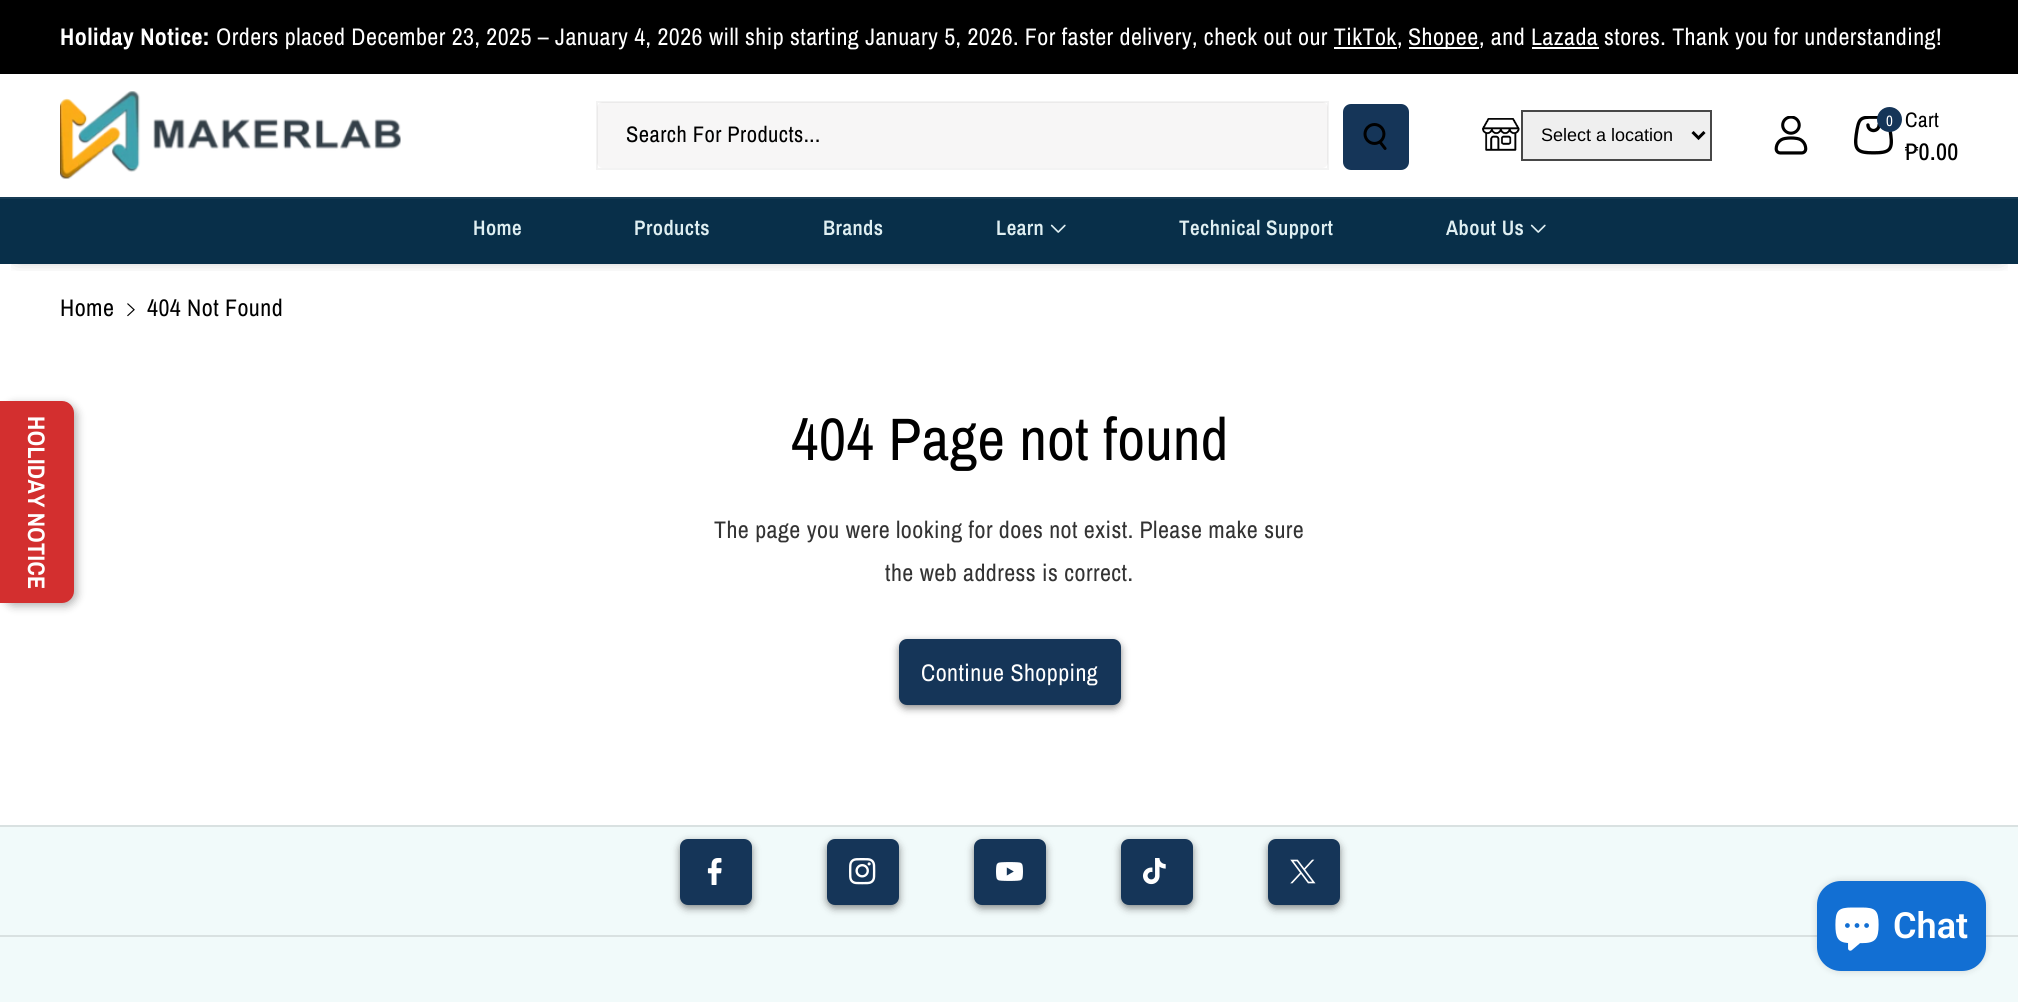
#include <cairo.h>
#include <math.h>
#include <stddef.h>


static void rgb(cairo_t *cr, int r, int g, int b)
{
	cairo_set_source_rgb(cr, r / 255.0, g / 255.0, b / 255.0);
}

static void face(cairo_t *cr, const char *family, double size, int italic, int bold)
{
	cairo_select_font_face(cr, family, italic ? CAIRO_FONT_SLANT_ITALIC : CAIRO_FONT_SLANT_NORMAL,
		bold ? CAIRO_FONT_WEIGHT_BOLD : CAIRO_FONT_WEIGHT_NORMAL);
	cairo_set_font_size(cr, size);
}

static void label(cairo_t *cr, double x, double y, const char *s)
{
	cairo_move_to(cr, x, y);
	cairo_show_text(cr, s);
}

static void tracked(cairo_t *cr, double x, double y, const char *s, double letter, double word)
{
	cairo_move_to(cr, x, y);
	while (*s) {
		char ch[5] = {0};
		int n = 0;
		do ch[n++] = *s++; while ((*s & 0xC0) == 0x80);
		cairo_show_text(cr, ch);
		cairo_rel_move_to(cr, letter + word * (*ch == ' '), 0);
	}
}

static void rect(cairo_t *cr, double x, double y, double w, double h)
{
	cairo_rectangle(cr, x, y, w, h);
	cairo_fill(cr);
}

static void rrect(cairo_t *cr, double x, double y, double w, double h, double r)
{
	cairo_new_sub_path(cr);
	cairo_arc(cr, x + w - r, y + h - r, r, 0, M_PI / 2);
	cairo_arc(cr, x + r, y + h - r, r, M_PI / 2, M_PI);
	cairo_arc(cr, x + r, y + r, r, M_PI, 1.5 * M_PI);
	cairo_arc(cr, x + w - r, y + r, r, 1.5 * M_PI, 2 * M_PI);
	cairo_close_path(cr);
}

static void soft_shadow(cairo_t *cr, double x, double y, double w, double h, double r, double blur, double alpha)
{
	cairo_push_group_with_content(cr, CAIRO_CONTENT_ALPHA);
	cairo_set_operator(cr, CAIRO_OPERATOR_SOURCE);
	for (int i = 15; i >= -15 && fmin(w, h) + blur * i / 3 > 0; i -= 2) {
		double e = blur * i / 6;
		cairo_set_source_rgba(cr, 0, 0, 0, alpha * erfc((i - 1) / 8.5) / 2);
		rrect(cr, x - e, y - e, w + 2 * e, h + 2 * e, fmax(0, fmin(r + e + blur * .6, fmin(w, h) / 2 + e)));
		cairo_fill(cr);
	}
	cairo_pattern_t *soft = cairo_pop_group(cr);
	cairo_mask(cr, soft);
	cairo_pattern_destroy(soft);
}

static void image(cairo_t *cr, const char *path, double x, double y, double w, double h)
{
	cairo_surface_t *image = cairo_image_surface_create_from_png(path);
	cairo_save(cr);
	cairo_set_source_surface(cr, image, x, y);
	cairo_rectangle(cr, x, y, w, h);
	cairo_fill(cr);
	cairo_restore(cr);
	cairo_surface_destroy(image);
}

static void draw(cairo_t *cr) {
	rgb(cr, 255, 255, 255);
	cairo_paint(cr);
	rgb(cr, 0, 0, 0);
	rect(cr, 0, 0, 2018, 74);
	face(cr, "Archivo Narrow", 24, 0, 1);
	rgb(cr, 255, 255, 255);
	tracked(cr, 60, 45, "Holiday Notice:", 0.45, 0);
	face(cr, "Archivo Narrow", 24, 0, 0);
	tracked(cr, 216, 45, "Orders placed December 23, 2025 – January 4, 2026 will ship starting January 5, 2026. For faster delivery, check out our TikTok", 0.45, 0);
	tracked(cr, 1397, 45, ",", 0.45, 0);
	rect(cr, 1409, 47, 70, 2);
	tracked(cr, 1408, 45, "Shopee", 0.45, 0);
	tracked(cr, 1479, 45, ", and Lazada", 0.45, 0);
	tracked(cr, 1604, 45, "stores. Thank you for understanding!", 0.45, 0);
	rect(cr, 1334, 47, 63, 2);
	rect(cr, 1532, 47, 67, 2);
	cairo_save(cr);
	cairo_rectangle(cr, 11, 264, 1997, 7);
	cairo_clip(cr);
	rgb(cr, 18, 18, 18);
	soft_shadow(cr, 18, 101, 1983, 154, 0, 9, 0.6);
	cairo_restore(cr);
	image(cr, "image0.png", 60, 91, 341, 88);
	rgb(cr, 247, 246, 246);
	rrect(cr, 597, 102, 731, 66, 6);
	cairo_fill(cr);
	cairo_rectangle(cr, 597, 102, 731, 67);
	cairo_set_source_rgba(cr, 0, 0, 0, 0.05);
	cairo_stroke(cr);
	face(cr, "Archivo Narrow", 22.5, 0, 0);
	rgb(cr, 0, 0, 0);
	tracked(cr, 626, 142, "Search For Products...", 0.45, 0);
	rgb(cr, 21, 53, 88);
	rrect(cr, 1343, 104, 66, 66, 8);
	cairo_fill(cr);
	image(cr, "image1.png", 1363, 123, 24, 27);
	image(cr, "image2.png", 1482, 118, 38, 33);
	rgb(cr, 239, 239, 239);
	cairo_rectangle(cr, 1522, 111, 189, 49);
	cairo_fill_preserve(cr);
	rgb(cr, 71, 71, 71);
	cairo_stroke(cr);
	cairo_new_path(cr);
	cairo_move_to(cr, 1692.5, 132);
	cairo_line_to(cr, 1698.5, 138);
	cairo_line_to(cr, 1704.5, 132);
	rgb(cr, 0, 0, 0);
	cairo_set_line_width(cr, 3);
	cairo_stroke(cr);
	face(cr, "Liberation Sans", 18, 0, 0);
	label(cr, 1541, 141, "Select a location");
	image(cr, "image3.png", 1774, 116, 34, 39);
	image(cr, "image4.png", 1854, 116, 39, 39);
	rgb(cr, 21, 53, 88);
	cairo_arc(cr, 1889.5, 119.5, 12.5, 0, 2 * M_PI);
	cairo_fill(cr);
	face(cr, "Archivo Narrow", 15, 0, 0);
	rgb(cr, 255, 255, 255);
	tracked(cr, 1886, 126, "0", 0.45, 0);
	face(cr, "Archivo Narrow", 21, 0, 0);
	rgb(cr, 0, 0, 0);
	tracked(cr, 1905, 127, "Cart", 0.45, 0);
	face(cr, "Archivo Narrow Medium", 24, 0, 0);
	tracked(cr, 1905, 160, "₱0.00", 0.45, 0);
	rgb(cr, 8, 47, 73);
	rect(cr, 0, 199, 2018, 65);
	rgb(cr, 23, 60, 85);
	rect(cr, 0, 197, 2018, 2);
	face(cr, "Archivo Narrow SemiBold", 21, 0, 0);
	rgb(cr, 223, 239, 242);
	tracked(cr, 473, 235, "Home", 0.45, 0);
	tracked(cr, 634, 235, "Products", 0.45, 0);
	tracked(cr, 823, 235, "Brands", 0.45, 0);
	tracked(cr, 996, 235, "Learn", 0.45, 0);
	image(cr, "image5.png", 1050, 224, 16, 9);
	tracked(cr, 1179, 235, "Technical Support", 0.45, 0);
	tracked(cr, 1446, 235, "About Us", 0.45, 0);
	image(cr, "image5.png", 1530, 224, 16, 9);
	rgb(cr, 0, 0, 0);
	soft_shadow(cr, 3, 404, 74, 202, 12, 4.5, 0.3);
	rgb(cr, 211, 47, 47);
	cairo_new_path(cr);
	cairo_move_to(cr, 0, 401);
	cairo_line_to(cr, 62, 401);
	cairo_curve_to(cr, 68.5, 401, 74, 406.5, 74, 413);
	cairo_line_to(cr, 74, 591);
	cairo_curve_to(cr, 74, 597.5, 68.5, 603, 62, 603);
	cairo_line_to(cr, 0, 603);
	cairo_close_path(cr);
	cairo_fill(cr);
	face(cr, "Archivo Narrow", 24, 0, 1);
	rgb(cr, 255, 255, 255);
	cairo_save(cr);
	cairo_translate(cr, 28, 416);
	cairo_rotate(cr, 90 * M_PI / 180);
	tracked(cr, 0, 0, "HOLIDAY NOTICE", 0.45, -1);
	cairo_restore(cr);
	face(cr, "Archivo Narrow", 24, 0, 0);
	rgb(cr, 0, 0, 0);
	tracked(cr, 60, 316, "Home", 0.45, 0);
	image(cr, "image6.png", 127, 303, 8, 14);
	tracked(cr, 147, 316, "404 Not Found", 0.45, 0);
	face(cr, "Archivo Narrow", 60, 0, 0);
	tracked(cr, 791, 460, "404 Page not found", 0.45, 0);
	face(cr, "Archivo Narrow", 24, 0, 0);
	rgb(cr, 51, 51, 51);
	tracked(cr, 714, 538, "The page you were looking for does not exist. Please make sure", 0.45, 0);
	tracked(cr, 885, 581, "the web address is correct.", 0.45, 0);
	rgb(cr, 18, 18, 18);
	soft_shadow(cr, 899, 642, 222, 66, 8, 4, 0.5);
	rgb(cr, 21, 53, 88);
	rrect(cr, 899, 639, 222, 66, 8);
	cairo_fill(cr);
	rgb(cr, 255, 255, 255);
	tracked(cr, 921, 681, "Continue Shopping", 0.45, 0);
	rgb(cr, 241, 250, 250);
	rect(cr, 0, 827, 2018, 175);
	rgb(cr, 217, 225, 225);
	rect(cr, 0, 825, 2018, 2);
	rect(cr, 0, 935, 2018, 2);
	rgb(cr, 18, 18, 18);
	soft_shadow(cr, 680, 842, 72, 66, 8, 4, 0.5);
	rgb(cr, 21, 53, 88);
	rrect(cr, 680, 839, 72, 66, 8);
	cairo_fill(cr);
	image(cr, "image7.png", 707, 858, 15, 27);
	rgb(cr, 18, 18, 18);
	soft_shadow(cr, 827, 842, 72, 66, 8, 4, 0.5);
	rgb(cr, 21, 53, 88);
	rrect(cr, 827, 839, 72, 66, 8);
	cairo_fill(cr);
	image(cr, "image8.png", 849, 858, 27, 27);
	rgb(cr, 18, 18, 18);
	soft_shadow(cr, 974, 842, 72, 66, 8, 4, 0.5);
	rgb(cr, 21, 53, 88);
	rrect(cr, 974, 839, 72, 66, 8);
	cairo_fill(cr);
	image(cr, "image9.png", 996, 862, 27, 19);
	rgb(cr, 18, 18, 18);
	soft_shadow(cr, 1121, 842, 72, 66, 8, 4, 0.5);
	rgb(cr, 21, 53, 88);
	rrect(cr, 1121, 839, 72, 66, 8);
	cairo_fill(cr);
	image(cr, "image10.png", 1143, 858, 23, 27);
	rgb(cr, 18, 18, 18);
	soft_shadow(cr, 1268, 842, 72, 66, 8, 4, 0.5);
	rgb(cr, 21, 53, 88);
	rrect(cr, 1268, 839, 72, 66, 8);
	cairo_fill(cr);
	image(cr, "image11.png", 1290, 859, 26, 25);
	rgb(cr, 0, 0, 0);
	soft_shadow(cr, 1817, 881, 169, 90, 24, 4, 0.15);
	rgb(cr, 18, 111, 211);
	rrect(cr, 1817, 881, 169, 90, 24);
	cairo_fill(cr);
	image(cr, "image12.png", 1835, 907, 44, 44);
	face(cr, "Roboto SemiBold", 36, 0, 0);
	rgb(cr, 255, 255, 255);
	label(cr, 1893, 938, "Chat");
}

int main(void) {
	cairo_surface_t *surface = cairo_image_surface_create(CAIRO_FORMAT_RGB24, 2018, 1002);
	cairo_t *cr = cairo_create(surface);
	cairo_font_options_t *options = cairo_font_options_create();
	cairo_font_options_set_hint_metrics(options, CAIRO_HINT_METRICS_OFF);
	cairo_font_options_set_hint_style(options, CAIRO_HINT_STYLE_NONE);
	cairo_set_font_options(cr, options);
	cairo_set_miter_limit(cr, 4);
	draw(cr);
	cairo_surface_write_to_png(surface, "render.png");
	cairo_font_options_destroy(options);
	cairo_destroy(cr);
	cairo_surface_destroy(surface);
	return 0;
}
